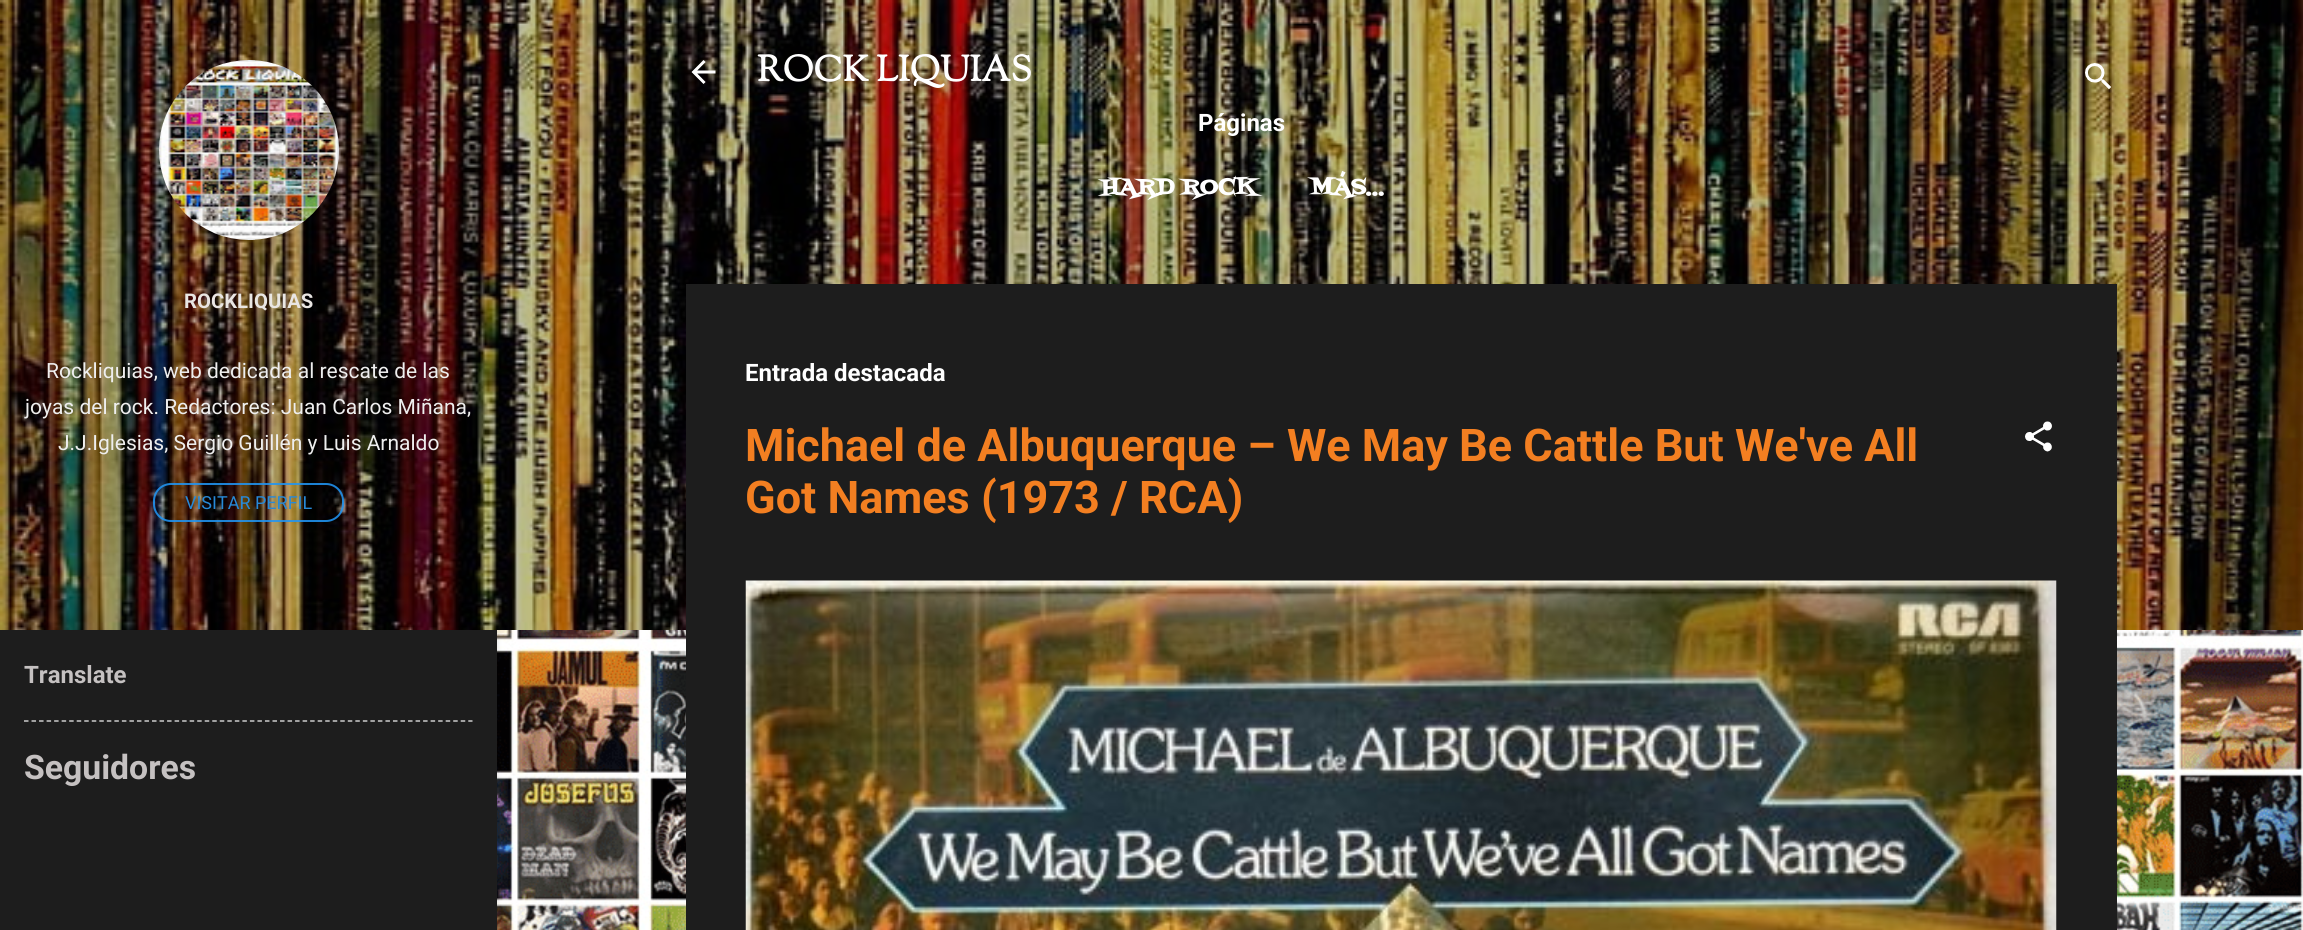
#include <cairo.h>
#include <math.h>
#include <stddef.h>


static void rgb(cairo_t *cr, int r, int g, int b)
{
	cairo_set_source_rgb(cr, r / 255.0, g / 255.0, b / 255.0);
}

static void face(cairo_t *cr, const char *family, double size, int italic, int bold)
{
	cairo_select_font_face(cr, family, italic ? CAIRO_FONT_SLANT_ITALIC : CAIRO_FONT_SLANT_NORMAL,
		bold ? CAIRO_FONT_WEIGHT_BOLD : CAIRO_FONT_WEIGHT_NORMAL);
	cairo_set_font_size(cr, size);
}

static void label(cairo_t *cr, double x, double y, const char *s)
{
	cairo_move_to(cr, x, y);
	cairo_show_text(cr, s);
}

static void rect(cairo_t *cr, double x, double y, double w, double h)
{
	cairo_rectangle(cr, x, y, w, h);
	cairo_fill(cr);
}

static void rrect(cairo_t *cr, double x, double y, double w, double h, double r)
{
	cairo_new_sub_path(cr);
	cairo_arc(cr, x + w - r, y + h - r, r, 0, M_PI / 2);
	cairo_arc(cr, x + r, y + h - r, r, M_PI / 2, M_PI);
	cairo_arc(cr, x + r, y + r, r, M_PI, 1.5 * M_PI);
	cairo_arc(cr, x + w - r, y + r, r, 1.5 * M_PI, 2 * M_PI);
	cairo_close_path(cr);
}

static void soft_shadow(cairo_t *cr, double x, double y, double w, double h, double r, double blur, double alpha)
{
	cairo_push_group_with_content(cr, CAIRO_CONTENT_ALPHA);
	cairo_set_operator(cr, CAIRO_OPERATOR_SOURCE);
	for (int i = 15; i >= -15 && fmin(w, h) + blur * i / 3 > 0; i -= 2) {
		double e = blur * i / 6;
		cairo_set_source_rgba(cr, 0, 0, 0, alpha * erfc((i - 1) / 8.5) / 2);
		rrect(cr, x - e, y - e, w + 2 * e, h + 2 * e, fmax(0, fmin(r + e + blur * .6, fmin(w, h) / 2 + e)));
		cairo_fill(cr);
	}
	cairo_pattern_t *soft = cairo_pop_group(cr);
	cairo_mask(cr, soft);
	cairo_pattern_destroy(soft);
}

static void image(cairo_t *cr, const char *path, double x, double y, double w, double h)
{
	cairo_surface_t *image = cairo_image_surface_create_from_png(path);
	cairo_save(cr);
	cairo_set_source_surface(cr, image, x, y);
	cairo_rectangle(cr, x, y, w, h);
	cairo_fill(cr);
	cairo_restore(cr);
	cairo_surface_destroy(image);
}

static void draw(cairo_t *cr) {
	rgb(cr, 255, 255, 255);
	cairo_paint(cr);
	image(cr, "image0.png", 497, 630, 1806, 300);
	image(cr, "image2.png", 0, 0, 2303, 630);
	rgb(cr, 0, 0, 0);
	soft_shadow(cr, 2, 632, 496, 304, 0, 2, 0.1);
	rgb(cr, 29, 29, 29);
	rect(cr, 0, 630, 497, 300);
	image(cr, "image1.png", 159, 60, 180, 180);
	face(cr, "Roboto", 20.25, 0, 1);
	rgb(cr, 233, 230, 227);
	label(cr, 184, 308, "ROCKLIQUIAS");
	face(cr, "Roboto", 21, 0, 0);
	rgb(cr, 238, 238, 238);
	label(cr, 46, 378, "Rockliquias, web dedicada al rescate de las");
	label(cr, 25, 414, "joyas del rock. Redactores: Juan Carlos Miñana,");
	label(cr, 58, 450, "J.J.Iglesias, Sergio Guillén y Luis Arnaldo");
	rrect(cr, 154, 484, 189, 37, 17);
	cairo_set_source_rgba(cr, 0.129, 0.588, 0.953, 0.87);
	cairo_stroke(cr);
	face(cr, "Roboto", 18, 0, 0);
	rgb(cr, 39, 138, 216);
	label(cr, 185, 509, "VISITAR PERFIL");
	face(cr, "Roboto", 24, 0, 1);
	rgb(cr, 197, 193, 193);
	label(cr, 24, 683, "Translate");
	cairo_new_path(cr);
	cairo_move_to(cr, 24, 721);
	cairo_line_to(cr, 472.5, 721);
	rgb(cr, 204, 204, 204);
	cairo_set_line_width(cr, 1.5);
	cairo_set_dash(cr, (double[]){4.5, 3.03}, 2, 0);
	cairo_stroke(cr);
	face(cr, "Roboto", 33.75, 0, 1);
	rgb(cr, 197, 193, 193);
	label(cr, 24, 779, "Seguidores");
	image(cr, "image3.png", 691, 60, 25, 24);
	face(cr, "Sorts Mill Goudy", 36, 0, 1);
	rgb(cr, 255, 255, 255);
	label(cr, 757, 81, "ROCK LIQUIAS");
	face(cr, "Roboto", 24, 0, 1);
	label(cr, 1198, 131, "Páginas");
	face(cr, "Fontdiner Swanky", 22.5, 0, 1);
	label(cr, 1101, 194, "HARD ROCK");
	label(cr, 1310, 194, "MÁS…");
	image(cr, "image4.png", 2085, 63, 26, 27);
	rgb(cr, 29, 29, 29);
	rect(cr, 686, 284, 1431, 646);
	face(cr, "Roboto", 24, 0, 1);
	rgb(cr, 255, 255, 255);
	label(cr, 745, 381, "Entrada destacada");
	face(cr, "Roboto", 45, 0, 1);
	rgb(cr, 243, 127, 33);
	label(cr, 745, 461, "Michael de Albuquerque – We May Be Cattle But We've All");
	label(cr, 745, 513, "Got Names (1973 / RCA)");
	image(cr, "image5.png", 2025, 421, 27, 31);
	image(cr, "image6.png", 745, 580, 1312, 350);
}

int main(void) {
	cairo_surface_t *surface = cairo_image_surface_create(CAIRO_FORMAT_RGB24, 2303, 930);
	cairo_t *cr = cairo_create(surface);
	cairo_font_options_t *options = cairo_font_options_create();
	cairo_font_options_set_hint_metrics(options, CAIRO_HINT_METRICS_OFF);
	cairo_font_options_set_hint_style(options, CAIRO_HINT_STYLE_NONE);
	cairo_set_font_options(cr, options);
	cairo_set_miter_limit(cr, 4);
	draw(cr);
	cairo_surface_write_to_png(surface, "render.png");
	cairo_font_options_destroy(options);
	cairo_destroy(cr);
	cairo_surface_destroy(surface);
	return 0;
}
